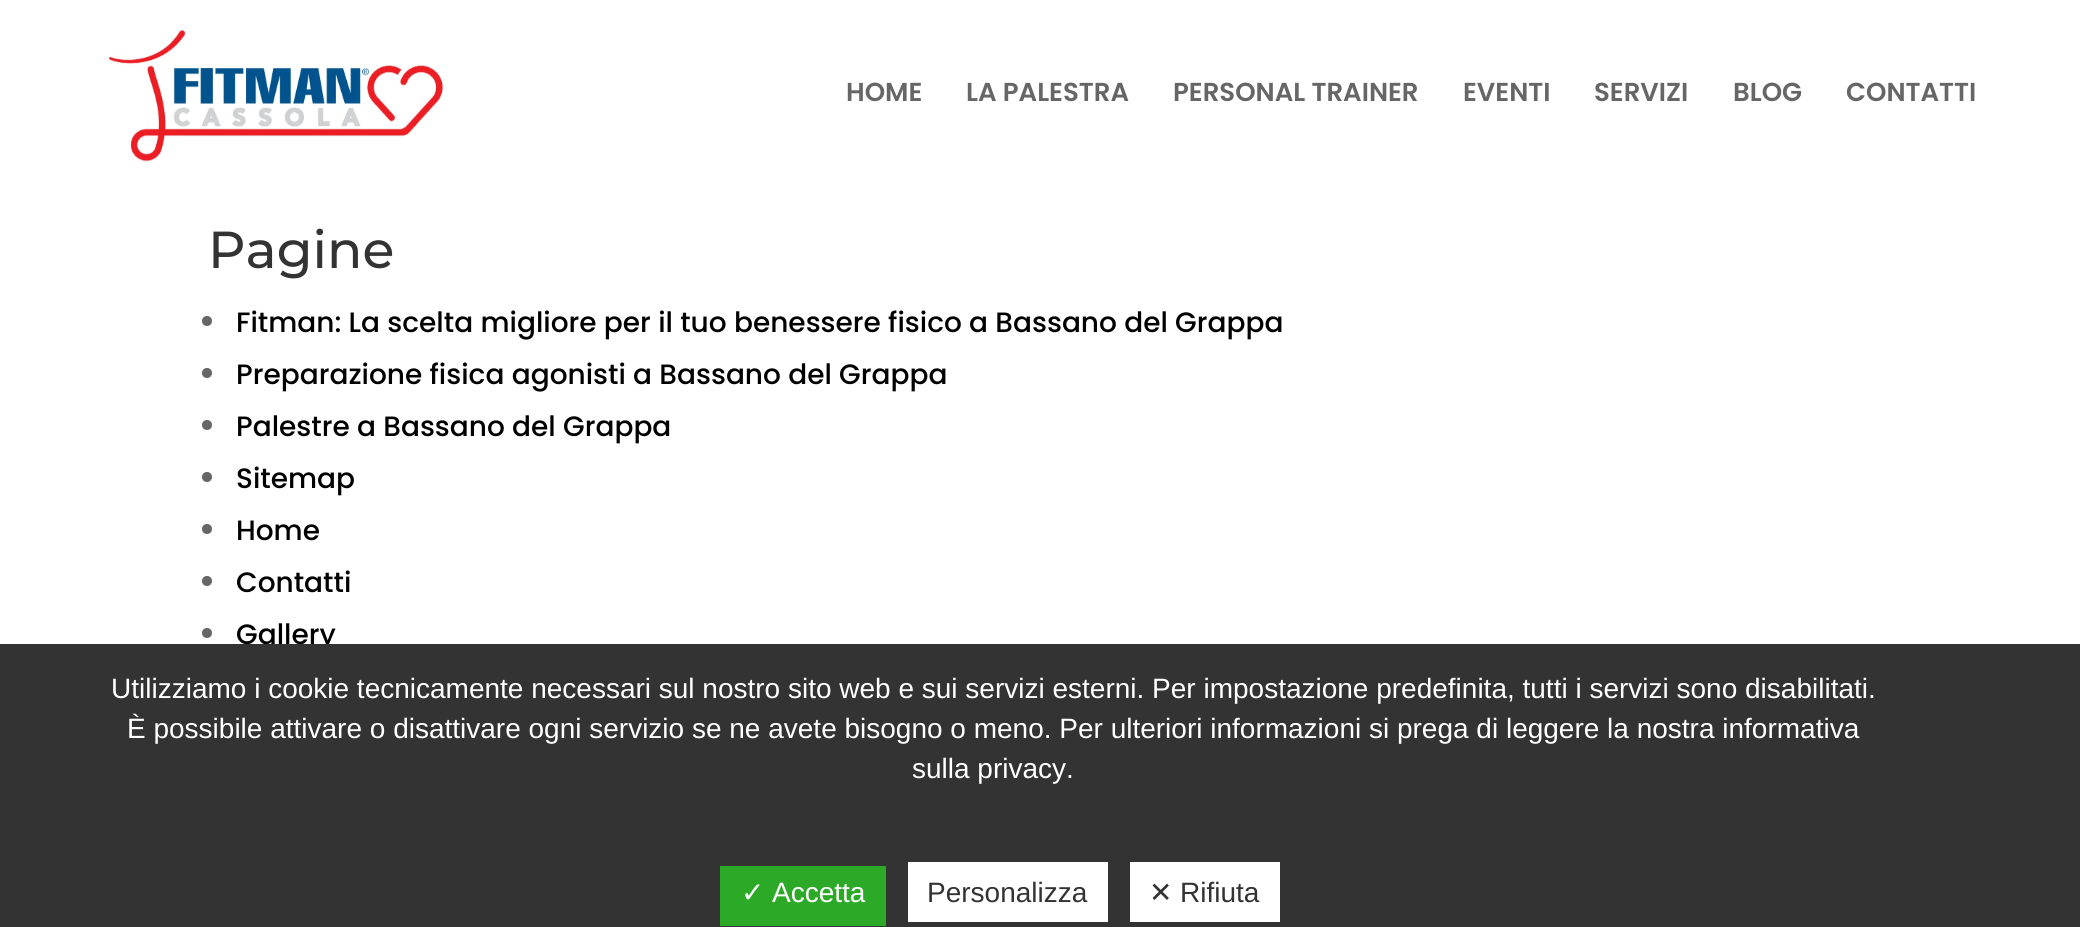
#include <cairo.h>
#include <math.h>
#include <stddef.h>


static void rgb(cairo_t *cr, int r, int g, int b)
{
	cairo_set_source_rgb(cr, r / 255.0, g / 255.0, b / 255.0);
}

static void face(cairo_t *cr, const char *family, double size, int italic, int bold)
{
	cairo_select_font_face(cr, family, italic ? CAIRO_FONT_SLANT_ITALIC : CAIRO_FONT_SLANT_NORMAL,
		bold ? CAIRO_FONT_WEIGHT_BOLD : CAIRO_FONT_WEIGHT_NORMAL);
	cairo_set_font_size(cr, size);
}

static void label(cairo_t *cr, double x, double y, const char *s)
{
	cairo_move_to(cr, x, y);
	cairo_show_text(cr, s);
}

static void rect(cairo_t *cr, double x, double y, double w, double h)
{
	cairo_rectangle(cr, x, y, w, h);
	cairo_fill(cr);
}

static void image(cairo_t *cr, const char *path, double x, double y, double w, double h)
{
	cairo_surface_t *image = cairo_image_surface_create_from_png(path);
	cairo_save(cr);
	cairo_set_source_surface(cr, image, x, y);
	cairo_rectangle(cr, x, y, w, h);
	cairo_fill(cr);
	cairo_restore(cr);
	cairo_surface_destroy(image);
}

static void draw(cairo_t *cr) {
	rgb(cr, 255, 255, 255);
	cairo_paint(cr);
	image(cr, "image0.png", 108, 29, 335, 133);
	face(cr, "Poppins SemiBold", 26, 0, 0);
	rgb(cr, 102, 102, 102);
	label(cr, 846, 101, "HOME");
	label(cr, 966, 101, "LA PALESTRA");
	label(cr, 1173, 101, "PERSONAL TRAINER");
	label(cr, 1463, 101, "EVENTI");
	label(cr, 1594, 101, "SERVIZI");
	label(cr, 1733, 101, "BLOG");
	label(cr, 1846, 101, "CONTATTI");
	face(cr, "Montserrat Thin", 52, 0, 0);
	rgb(cr, 51, 51, 51);
	label(cr, 208, 268, "Pagine");
	rgb(cr, 102, 102, 102);
	cairo_new_path(cr);
	cairo_arc(cr, 207, 321, 5, 0, 2 * M_PI);
	cairo_fill(cr);
	face(cr, "Poppins Medium", 28, 0, 0);
	rgb(cr, 0, 0, 0);
	label(cr, 236, 332, "Fitman: La scelta migliore per il tuo benessere fisico a Bassano del Grappa");
	rgb(cr, 102, 102, 102);
	cairo_new_path(cr);
	cairo_arc(cr, 207, 373, 5, 0, 2 * M_PI);
	cairo_fill(cr);
	rgb(cr, 0, 0, 0);
	label(cr, 236, 384, "Preparazione fisica agonisti a Bassano del Grappa");
	rgb(cr, 102, 102, 102);
	cairo_new_path(cr);
	cairo_arc(cr, 207, 425, 5, 0, 2 * M_PI);
	cairo_fill(cr);
	rgb(cr, 0, 0, 0);
	label(cr, 236, 436, "Palestre a Bassano del Grappa");
	rgb(cr, 102, 102, 102);
	cairo_new_path(cr);
	cairo_arc(cr, 207, 477, 5, 0, 2 * M_PI);
	cairo_fill(cr);
	rgb(cr, 0, 0, 0);
	label(cr, 236, 488, "Sitemap");
	rgb(cr, 102, 102, 102);
	cairo_new_path(cr);
	cairo_arc(cr, 207, 529, 5, 0, 2 * M_PI);
	cairo_fill(cr);
	rgb(cr, 0, 0, 0);
	label(cr, 236, 540, "Home");
	rgb(cr, 102, 102, 102);
	cairo_new_path(cr);
	cairo_arc(cr, 207, 581, 5, 0, 2 * M_PI);
	cairo_fill(cr);
	rgb(cr, 0, 0, 0);
	label(cr, 236, 592, "Contatti");
	rgb(cr, 102, 102, 102);
	cairo_new_path(cr);
	cairo_arc(cr, 207, 633, 5, 0, 2 * M_PI);
	cairo_fill(cr);
	rgb(cr, 0, 0, 0);
	label(cr, 236, 644, "Gallery");
	rgb(cr, 51, 51, 51);
	rect(cr, 0, 644, 2080, 283);
	face(cr, "Liberation Sans", 28, 0, 0);
	rgb(cr, 255, 255, 255);
	label(cr, 111, 698, "Utilizziamo i cookie tecnicamente necessari sul nostro sito web e sui servizi esterni. Per impostazione predefinita, tutti i servizi sono disabilitati.");
	label(cr, 127, 738, "È possibile attivare o disattivare ogni servizio se ne avete bisogno o meno. Per ulteriori informazioni si prega di leggere la nostra informativa");
	label(cr, 912, 778, "sulla privacy.");
	rgb(cr, 44, 170, 39);
	rect(cr, 720, 866, 166, 60);
	face(cr, "DejaVu Sans", 28, 0, 0);
	rgb(cr, 255, 255, 255);
	label(cr, 741, 902, "✓");
	face(cr, "Liberation Sans", 28, 0, 0);
	label(cr, 772, 902, "Accetta");
	rect(cr, 908, 862, 200, 60);
	rgb(cr, 51, 51, 51);
	label(cr, 927, 902, "Personalizza");
	rgb(cr, 255, 255, 255);
	rect(cr, 1130, 862, 150, 60);
	face(cr, "DejaVu Sans", 28, 0, 0);
	rgb(cr, 51, 51, 51);
	label(cr, 1149, 902, "✕");
	face(cr, "Liberation Sans", 28, 0, 0);
	label(cr, 1180, 902, "Rifiuta");
}

int main(void) {
	cairo_surface_t *surface = cairo_image_surface_create(CAIRO_FORMAT_RGB24, 2080, 927);
	cairo_t *cr = cairo_create(surface);
	cairo_font_options_t *options = cairo_font_options_create();
	cairo_font_options_set_hint_metrics(options, CAIRO_HINT_METRICS_OFF);
	cairo_font_options_set_hint_style(options, CAIRO_HINT_STYLE_NONE);
	cairo_set_font_options(cr, options);
	cairo_set_miter_limit(cr, 4);
	draw(cr);
	cairo_surface_write_to_png(surface, "render.png");
	cairo_font_options_destroy(options);
	cairo_destroy(cr);
	cairo_surface_destroy(surface);
	return 0;
}
